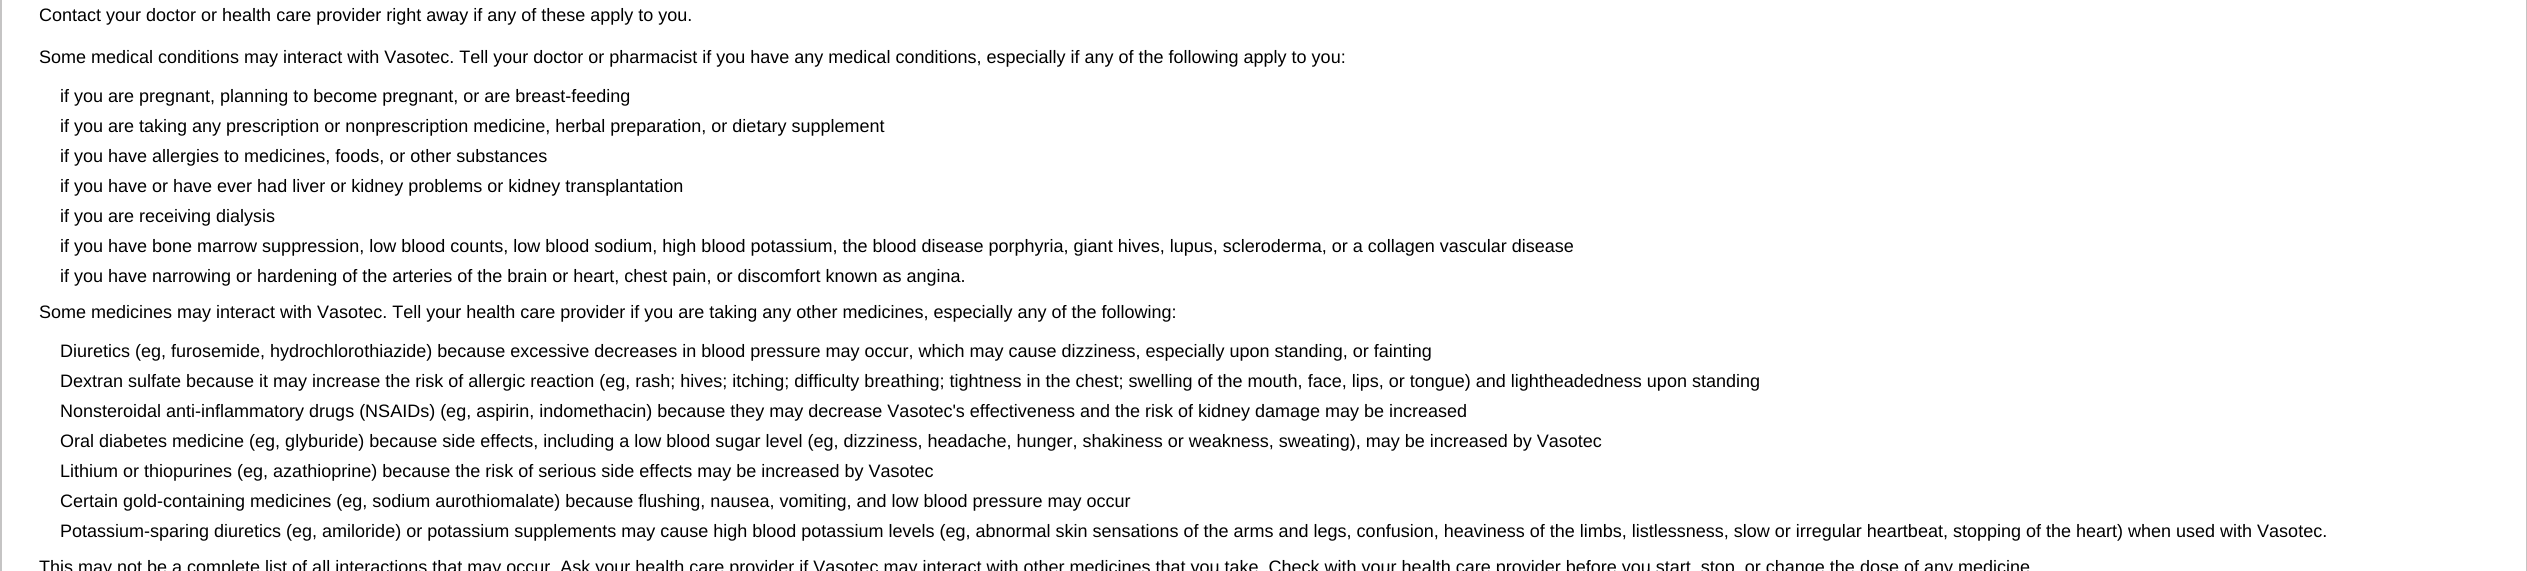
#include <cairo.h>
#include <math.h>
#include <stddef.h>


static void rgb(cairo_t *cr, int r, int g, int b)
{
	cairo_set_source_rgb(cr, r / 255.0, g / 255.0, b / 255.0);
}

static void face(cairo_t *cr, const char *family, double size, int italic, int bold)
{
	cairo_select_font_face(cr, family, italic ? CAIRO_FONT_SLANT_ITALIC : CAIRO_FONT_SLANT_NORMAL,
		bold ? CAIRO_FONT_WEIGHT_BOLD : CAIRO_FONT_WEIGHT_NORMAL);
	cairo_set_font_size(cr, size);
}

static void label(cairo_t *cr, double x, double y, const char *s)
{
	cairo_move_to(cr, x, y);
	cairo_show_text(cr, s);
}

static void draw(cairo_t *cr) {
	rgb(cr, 255, 255, 255);
	cairo_paint(cr);
	cairo_rectangle(cr, 1, -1, 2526, 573);
	rgb(cr, 197, 196, 196);
	cairo_stroke(cr);
	face(cr, "Liberation Sans", 18, 0, 0);
	rgb(cr, 0, 0, 0);
	label(cr, 39, 21, "Contact your doctor or health care provider right away if any of these apply to you.");
	label(cr, 39, 63, "Some medical conditions may interact with Vasotec. Tell your doctor or pharmacist if you have any medical conditions, especially if any of the following apply to you:");
	label(cr, 60, 102, "if you are pregnant, planning to become pregnant, or are breast-feeding");
	label(cr, 60, 132, "if you are taking any prescription or nonprescription medicine, herbal preparation, or dietary supplement");
	label(cr, 60, 162, "if you have allergies to medicines, foods, or other substances");
	label(cr, 60, 192, "if you have or have ever had liver or kidney problems or kidney transplantation");
	label(cr, 60, 222, "if you are receiving dialysis");
	label(cr, 60, 252, "if you have bone marrow suppression, low blood counts, low blood sodium, high blood potassium, the blood disease porphyria, giant hives, lupus, scleroderma, or a collagen vascular disease");
	label(cr, 60, 282, "if you have narrowing or hardening of the arteries of the brain or heart, chest pain, or discomfort known as angina.");
	label(cr, 39, 318, "Some medicines may interact with Vasotec. Tell your health care provider if you are taking any other medicines, especially any of the following:");
	label(cr, 60, 357, "Diuretics (eg, furosemide, hydrochlorothiazide) because excessive decreases in blood pressure may occur, which may cause dizziness, especially upon standing, or fainting");
	label(cr, 60, 387, "Dextran sulfate because it may increase the risk of allergic reaction (eg, rash; hives; itching; difficulty breathing; tightness in the chest; swelling of the mouth, face, lips, or tongue) and lightheadedness upon standing");
	label(cr, 60, 417, "Nonsteroidal anti-inflammatory drugs (NSAIDs) (eg, aspirin, indomethacin) because they may decrease Vasotec's effectiveness and the risk of kidney damage may be increased");
	label(cr, 60, 447, "Oral diabetes medicine (eg, glyburide) because side effects, including a low blood sugar level (eg, dizziness, headache, hunger, shakiness or weakness, sweating), may be increased by Vasotec");
	label(cr, 60, 477, "Lithium or thiopurines (eg, azathioprine) because the risk of serious side effects may be increased by Vasotec");
	label(cr, 60, 507, "Certain gold-containing medicines (eg, sodium aurothiomalate) because flushing, nausea, vomiting, and low blood pressure may occur");
	label(cr, 60, 537, "Potassium-sparing diuretics (eg, amiloride) or potassium supplements may cause high blood potassium levels (eg, abnormal skin sensations of the arms and legs, confusion, heaviness of the limbs, listlessness, slow or irregular heartbeat, stopping of the heart) when used with Vasotec.");
	label(cr, 39, 573, "This may not be a complete list of all interactions that may occur. Ask your health care provider if Vasotec may interact with other medicines that you take. Check with your health care provider before you start, stop, or change the dose of any medicine");
}

int main(void) {
	cairo_surface_t *surface = cairo_image_surface_create(CAIRO_FORMAT_RGB24, 2527, 571);
	cairo_t *cr = cairo_create(surface);
	cairo_font_options_t *options = cairo_font_options_create();
	cairo_font_options_set_hint_metrics(options, CAIRO_HINT_METRICS_OFF);
	cairo_font_options_set_hint_style(options, CAIRO_HINT_STYLE_NONE);
	cairo_set_font_options(cr, options);
	cairo_set_miter_limit(cr, 4);
	draw(cr);
	cairo_surface_write_to_png(surface, "render.png");
	cairo_font_options_destroy(options);
	cairo_destroy(cr);
	cairo_surface_destroy(surface);
	return 0;
}
